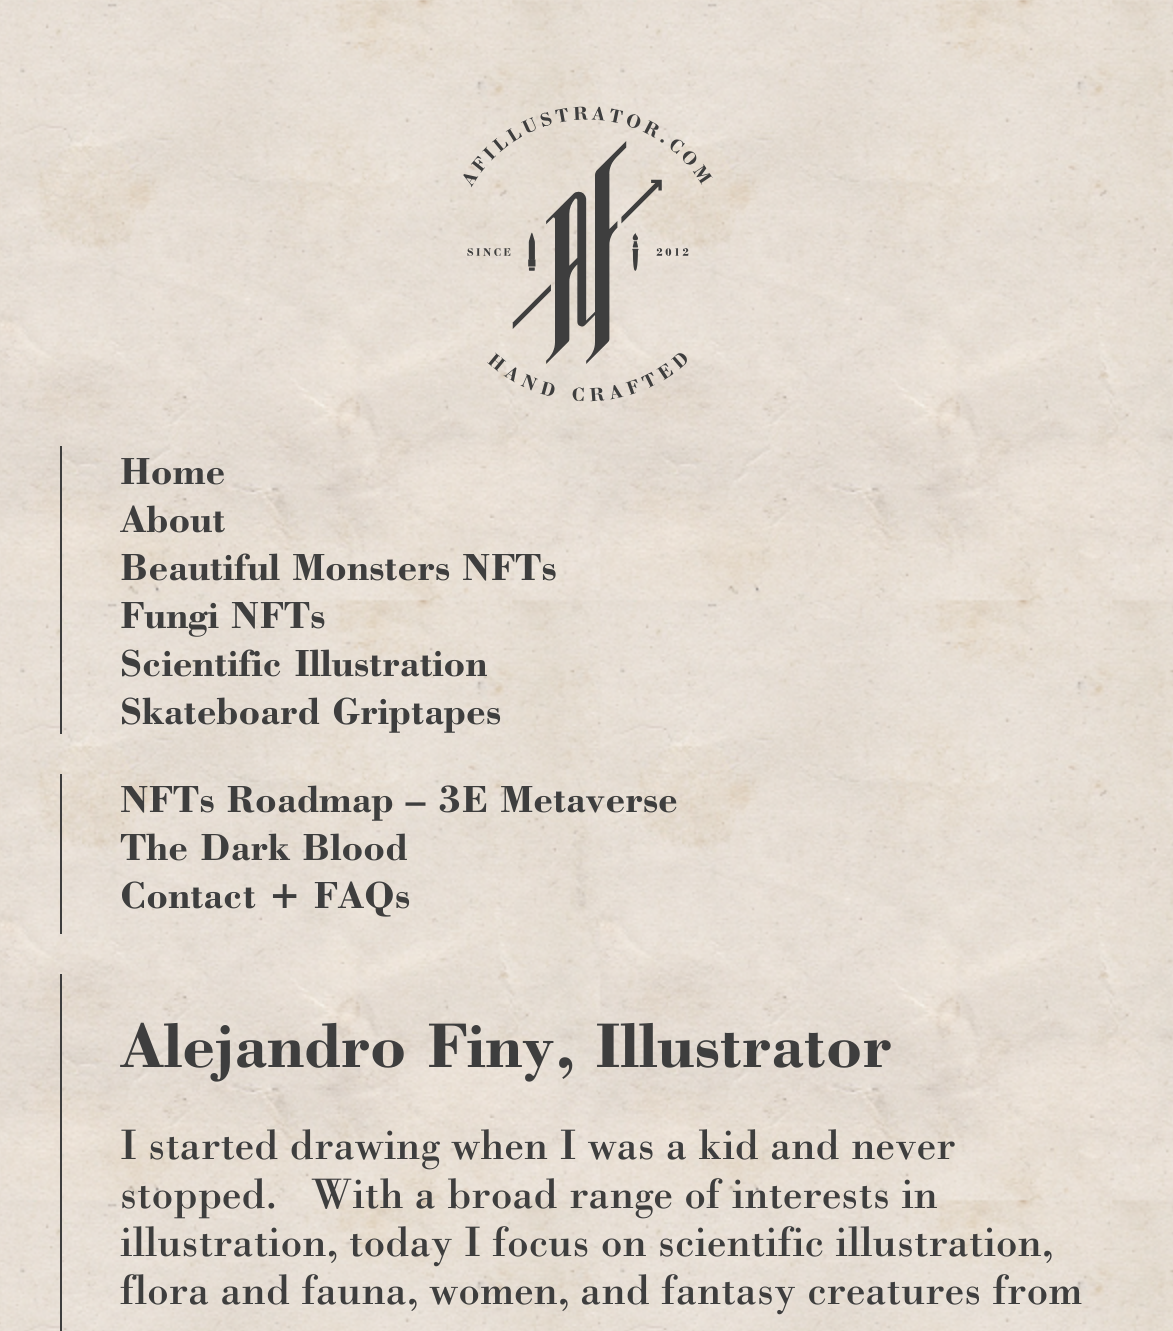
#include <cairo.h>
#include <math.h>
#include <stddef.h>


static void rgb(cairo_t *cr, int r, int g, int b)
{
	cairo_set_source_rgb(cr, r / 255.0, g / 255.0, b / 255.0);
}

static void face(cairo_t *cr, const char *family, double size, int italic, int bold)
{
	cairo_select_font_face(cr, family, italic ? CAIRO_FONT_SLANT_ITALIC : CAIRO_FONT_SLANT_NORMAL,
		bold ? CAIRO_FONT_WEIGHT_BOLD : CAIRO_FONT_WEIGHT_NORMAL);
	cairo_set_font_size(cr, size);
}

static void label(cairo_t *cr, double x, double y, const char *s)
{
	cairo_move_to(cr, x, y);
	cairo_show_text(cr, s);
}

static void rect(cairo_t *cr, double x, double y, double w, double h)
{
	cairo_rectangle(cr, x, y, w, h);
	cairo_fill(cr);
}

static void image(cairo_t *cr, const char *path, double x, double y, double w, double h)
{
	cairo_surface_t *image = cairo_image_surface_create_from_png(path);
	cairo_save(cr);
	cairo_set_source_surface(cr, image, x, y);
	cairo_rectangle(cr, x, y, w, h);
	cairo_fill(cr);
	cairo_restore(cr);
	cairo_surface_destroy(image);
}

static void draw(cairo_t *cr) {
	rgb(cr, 255, 255, 255);
	cairo_paint(cr);
	image(cr, "image0.png", 0, 0, 1173, 1331);
	image(cr, "image1.png", 463, 106, 250, 296);
	rgb(cr, 62, 62, 62);
	rect(cr, 60, 446, 2, 288);
	face(cr, "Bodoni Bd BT", 40, 0, 1);
	label(cr, 120, 484, "Home");
	label(cr, 120, 532, "About");
	label(cr, 120, 580, "Beautiful Monsters NFTs");
	label(cr, 120, 628, "Fungi NFTs");
	label(cr, 120, 676, "Scientific Illustration");
	label(cr, 120, 724, "Skateboard Griptapes");
	rect(cr, 60, 774, 2, 160);
	label(cr, 120, 812, "NFTs Roadmap – 3E Metaverse");
	label(cr, 120, 860, "The Dark Blood");
	label(cr, 120, 908, "Contact + FAQs");
	rect(cr, 60, 974, 2, 357);
	face(cr, "Bodoni Bd BT", 66.75, 0, 1);
	label(cr, 120, 1067, "Alejandro Finy, Illustrator");
	face(cr, "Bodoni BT", 44, 0, 0);
	label(cr, 120, 1159, "I started drawing when I was a kid and never");
	label(cr, 120, 1208, "stopped.");
	label(cr, 311, 1208, "With a broad range of interests in");
	label(cr, 120, 1256, "illustration, today I focus on scientific illustration,");
	label(cr, 120, 1304, "flora and fauna, women, and fantasy creatures from");
}

int main(void) {
	cairo_surface_t *surface = cairo_image_surface_create(CAIRO_FORMAT_RGB24, 1173, 1331);
	cairo_t *cr = cairo_create(surface);
	cairo_font_options_t *options = cairo_font_options_create();
	cairo_font_options_set_hint_metrics(options, CAIRO_HINT_METRICS_OFF);
	cairo_font_options_set_hint_style(options, CAIRO_HINT_STYLE_NONE);
	cairo_set_font_options(cr, options);
	cairo_set_miter_limit(cr, 4);
	draw(cr);
	cairo_surface_write_to_png(surface, "render.png");
	cairo_font_options_destroy(options);
	cairo_destroy(cr);
	cairo_surface_destroy(surface);
	return 0;
}
